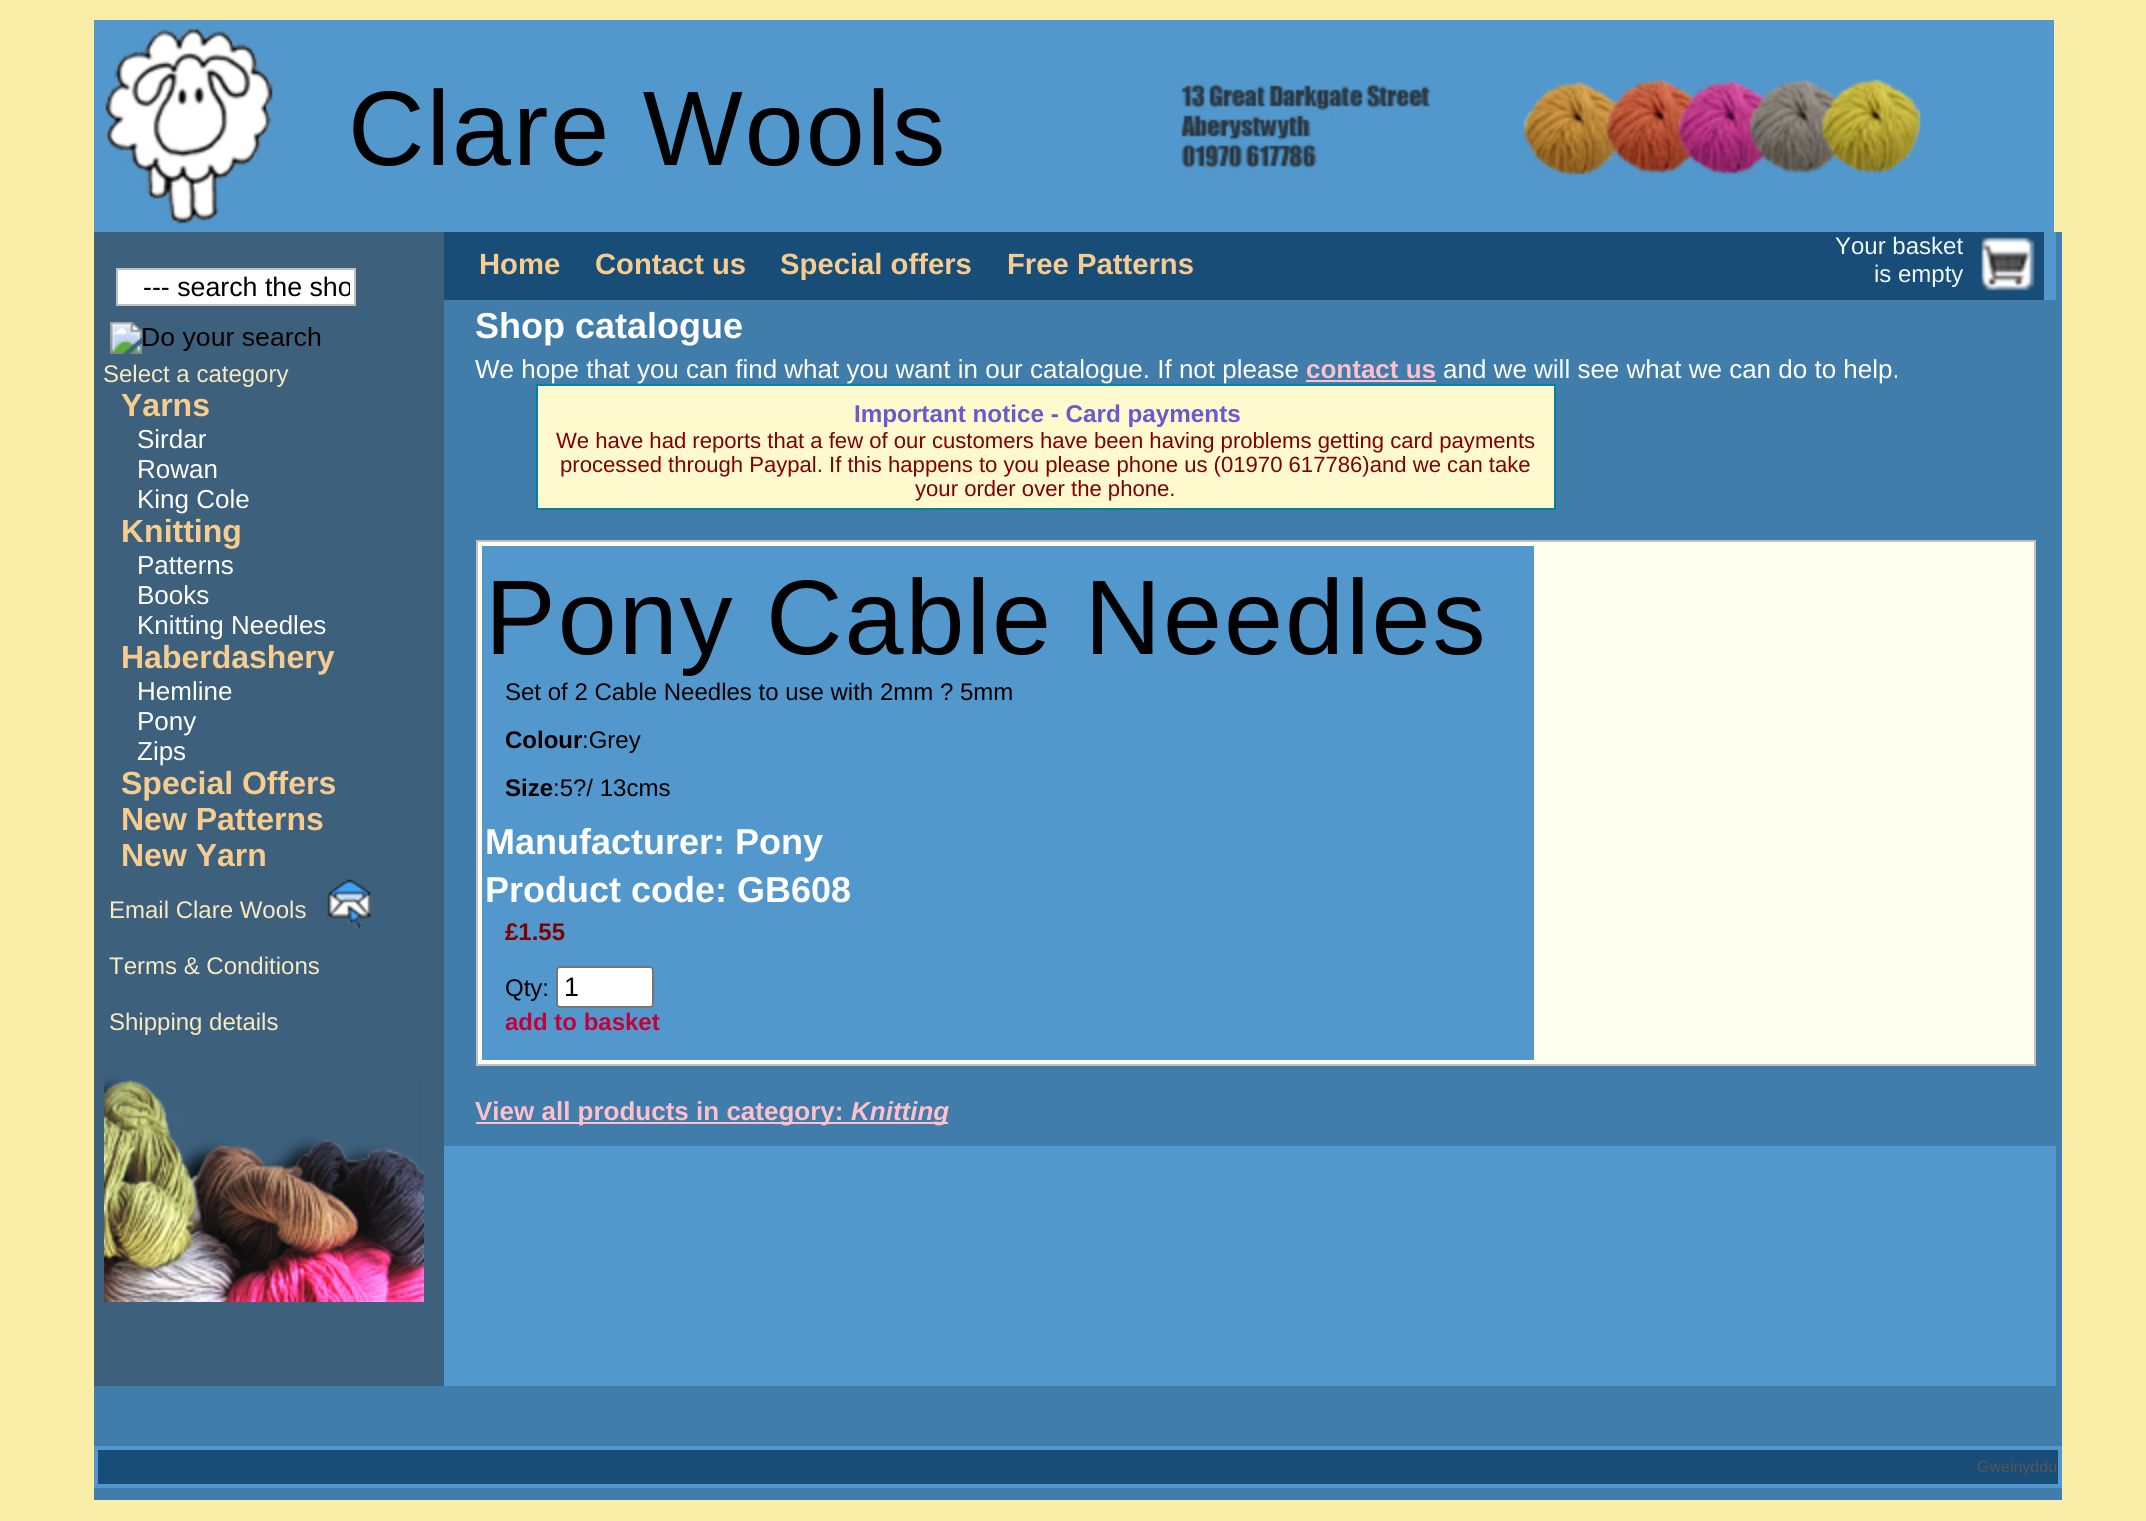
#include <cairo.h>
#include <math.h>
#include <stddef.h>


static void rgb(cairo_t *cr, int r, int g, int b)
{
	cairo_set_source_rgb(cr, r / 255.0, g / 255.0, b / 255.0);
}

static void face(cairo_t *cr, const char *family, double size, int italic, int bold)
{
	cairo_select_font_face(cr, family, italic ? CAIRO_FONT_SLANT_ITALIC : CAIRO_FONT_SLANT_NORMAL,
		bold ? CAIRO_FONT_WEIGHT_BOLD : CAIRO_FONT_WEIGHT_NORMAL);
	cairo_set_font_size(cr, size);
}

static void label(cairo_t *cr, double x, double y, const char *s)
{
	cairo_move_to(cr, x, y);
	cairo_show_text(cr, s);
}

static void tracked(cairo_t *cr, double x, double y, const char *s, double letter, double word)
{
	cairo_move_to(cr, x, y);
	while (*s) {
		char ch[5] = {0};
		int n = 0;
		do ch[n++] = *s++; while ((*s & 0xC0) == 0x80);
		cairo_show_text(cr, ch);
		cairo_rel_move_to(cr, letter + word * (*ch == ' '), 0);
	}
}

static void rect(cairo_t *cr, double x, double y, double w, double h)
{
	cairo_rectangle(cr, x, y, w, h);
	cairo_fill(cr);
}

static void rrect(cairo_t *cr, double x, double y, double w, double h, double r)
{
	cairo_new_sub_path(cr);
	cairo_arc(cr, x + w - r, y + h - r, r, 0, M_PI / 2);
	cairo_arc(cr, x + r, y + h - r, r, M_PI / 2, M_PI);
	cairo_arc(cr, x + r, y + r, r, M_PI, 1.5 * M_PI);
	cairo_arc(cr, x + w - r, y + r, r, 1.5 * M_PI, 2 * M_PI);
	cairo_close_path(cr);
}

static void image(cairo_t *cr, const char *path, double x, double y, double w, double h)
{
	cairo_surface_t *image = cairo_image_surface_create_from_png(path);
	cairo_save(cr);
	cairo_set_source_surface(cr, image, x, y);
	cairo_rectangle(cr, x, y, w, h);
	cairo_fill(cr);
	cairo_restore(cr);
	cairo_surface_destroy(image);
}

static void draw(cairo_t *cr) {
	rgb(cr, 250, 237, 167);
	cairo_paint(cr);
	rgb(cr, 82, 152, 205);
	rect(cr, 94, 20, 1960, 212);
	image(cr, "image0.png", 105, 27, 168, 198);
	face(cr, "Liberation Sans", 106, 0, 0);
	rgb(cr, 0, 0, 0);
	tracked(cr, 348, 165, "Clare Wools", 2, 0);
	image(cr, "image1.png", 1181, 83, 250, 86);
	image(cr, "image2.png", 1523, 79, 398, 96);
	rgb(cr, 65, 125, 171);
	rect(cr, 94, 232, 1968, 1268);
	rgb(cr, 82, 152, 205);
	rect(cr, 444, 232, 1612, 1154);
	rgb(cr, 61, 97, 125);
	rect(cr, 94, 232, 350, 1154);
	rgb(cr, 255, 255, 255);
	cairo_rectangle(cr, 117, 269, 238, 36);
	cairo_fill_preserve(cr);
	rgb(cr, 192, 192, 192);
	cairo_stroke(cr);
	cairo_save(cr);
	cairo_rectangle(cr, 122, 272, 228, 30);
	cairo_clip(cr);
	face(cr, "Liberation Sans", 26.75, 0, 0);
	rgb(cr, 0, 0, 0);
	label(cr, 143, 296, "--- search the sho");
	cairo_restore(cr);
	image(cr, "image3.png", 110, 322, 211, 32);
	face(cr, "Liberation Sans", 24, 0, 0);
	rgb(cr, 249, 233, 194);
	label(cr, 103, 382, "Select a category");
	face(cr, "Liberation Sans", 32, 0, 1);
	rgb(cr, 247, 204, 143);
	label(cr, 121, 416, "Yarns");
	face(cr, "Liberation Sans", 26, 0, 0);
	rgb(cr, 255, 255, 255);
	label(cr, 137, 448, "Sirdar");
	label(cr, 137, 478, "Rowan");
	label(cr, 137, 508, "King Cole");
	face(cr, "Liberation Sans", 32, 0, 1);
	rgb(cr, 247, 204, 143);
	label(cr, 121, 542, "Knitting");
	face(cr, "Liberation Sans", 26, 0, 0);
	rgb(cr, 255, 255, 255);
	label(cr, 137, 574, "Patterns");
	label(cr, 137, 604, "Books");
	label(cr, 137, 634, "Knitting Needles");
	face(cr, "Liberation Sans", 32, 0, 1);
	rgb(cr, 247, 204, 143);
	label(cr, 121, 668, "Haberdashery");
	face(cr, "Liberation Sans", 26, 0, 0);
	rgb(cr, 255, 255, 255);
	label(cr, 137, 700, "Hemline");
	label(cr, 137, 730, "Pony");
	label(cr, 137, 760, "Zips");
	face(cr, "Liberation Sans", 32, 0, 1);
	rgb(cr, 247, 204, 143);
	label(cr, 121, 794, "Special Offers");
	label(cr, 121, 830, "New Patterns");
	label(cr, 121, 866, "New Yarn");
	face(cr, "Liberation Sans", 24, 0, 0);
	rgb(cr, 249, 233, 194);
	label(cr, 109, 918, "Email Clare Wools");
	image(cr, "image4.png", 327, 879, 44, 49);
	label(cr, 109, 974, "Terms & Conditions");
	label(cr, 109, 1030, "Shipping details");
	image(cr, "image5.png", 104, 1077, 320, 225);
	rgb(cr, 24, 77, 119);
	rect(cr, 444, 232, 1600, 68);
	face(cr, "Liberation Sans", 29.25, 0, 1);
	rgb(cr, 247, 204, 143);
	label(cr, 479, 274, "Home");
	label(cr, 595, 274, "Contact us");
	label(cr, 780, 274, "Special offers");
	label(cr, 1007, 274, "Free Patterns");
	face(cr, "Liberation Sans", 24, 0, 0);
	rgb(cr, 240, 248, 255);
	label(cr, 1835, 254, "Your basket");
	image(cr, "image6.png", 1981, 237, 54, 54);
	label(cr, 1874, 282, "is empty");
	rgb(cr, 65, 125, 171);
	rect(cr, 444, 300, 1612, 846);
	face(cr, "Liberation Sans", 36, 0, 1);
	rgb(cr, 255, 255, 255);
	label(cr, 475, 338, "Shop catalogue");
	face(cr, "Liberation Sans", 26, 0, 0);
	label(cr, 475, 378, "We hope that you can find what you want in our catalogue. If not please");
	face(cr, "Liberation Sans", 26, 0, 1);
	rgb(cr, 255, 192, 203);
	label(cr, 1306, 378, "contact us");
	rect(cr, 1306, 380, 130, 2);
	face(cr, "Liberation Sans", 26, 0, 0);
	rgb(cr, 255, 255, 255);
	label(cr, 1443, 378, "and we will see what we can do to help.");
	rgb(cr, 255, 250, 205);
	cairo_rectangle(cr, 537, 385, 1018, 124);
	cairo_fill_preserve(cr);
	rgb(cr, 1, 131, 155);
	cairo_stroke(cr);
	face(cr, "Liberation Sans", 24.25, 0, 1);
	rgb(cr, 106, 90, 205);
	label(cr, 854, 422, "Important notice - Card payments");
	face(cr, "Liberation Sans", 22.1, 0, 0);
	rgb(cr, 128, 0, 0);
	label(cr, 556, 448, "We have had reports that a few of our customers have been having problems getting card payments");
	label(cr, 560, 472, "processed through Paypal. If this happens to you please phone us (01970 617786)and we can take");
	label(cr, 915, 496, "your order over the phone.");
	rgb(cr, 255, 255, 240);
	cairo_rectangle(cr, 477, 541, 1558, 524);
	cairo_fill_preserve(cr);
	rgb(cr, 192, 192, 192);
	cairo_stroke(cr);
	rgb(cr, 82, 152, 205);
	rect(cr, 482, 546, 1052, 514);
	face(cr, "Liberation Sans", 106, 0, 0);
	rgb(cr, 0, 0, 0);
	tracked(cr, 485, 654, "Pony Cable Needles", 2, 0);
	face(cr, "Liberation Sans", 24, 0, 0);
	label(cr, 505, 700, "Set of 2 Cable Needles to use with 2mm ? 5mm");
	face(cr, "Liberation Sans", 24, 0, 1);
	label(cr, 505, 748, "Colour");
	face(cr, "Liberation Sans", 24, 0, 0);
	label(cr, 582, 748, ":Grey");
	face(cr, "Liberation Sans", 24, 0, 1);
	label(cr, 505, 796, "Size");
	face(cr, "Liberation Sans", 24, 0, 0);
	label(cr, 553, 796, ":5?/ 13cms");
	face(cr, "Liberation Sans", 36, 0, 1);
	rgb(cr, 255, 255, 255);
	label(cr, 485, 854, "Manufacturer: Pony");
	label(cr, 485, 902, "Product code: GB608");
	face(cr, "Liberation Sans", 24, 0, 1);
	rgb(cr, 128, 0, 0);
	label(cr, 505, 940, "£1.55");
	face(cr, "Liberation Sans", 24, 0, 0);
	rgb(cr, 0, 0, 0);
	label(cr, 505, 996, "Qty:");
	rgb(cr, 255, 255, 255);
	rrect(cr, 557, 967, 96, 40, 3);
	cairo_fill_preserve(cr);
	rgb(cr, 118, 118, 118);
	cairo_stroke(cr);
	face(cr, "Liberation Sans", 26.75, 0, 0);
	rgb(cr, 0, 0, 0);
	label(cr, 564, 996, "1");
	face(cr, "Liberation Sans", 24, 0, 1);
	rgb(cr, 192, 3, 59);
	label(cr, 505, 1030, "add to basket");
	rgb(cr, 255, 192, 203);
	rect(cr, 476, 1122, 472, 2);
	face(cr, "Liberation Sans", 26, 0, 1);
	label(cr, 475, 1120, "View all products in category:");
	face(cr, "Liberation Sans", 26, 1, 1);
	label(cr, 851, 1120, "Knitting");
	rgb(cr, 82, 152, 205);
	rect(cr, 94, 1446, 1968, 42);
	rgb(cr, 24, 77, 119);
	rect(cr, 98, 1450, 1960, 34);
	face(cr, "Liberation Sans", 16, 0, 0);
	rgb(cr, 85, 85, 85);
	label(cr, 1977, 1472, "Gweinyddu");
}

int main(void) {
	cairo_surface_t *surface = cairo_image_surface_create(CAIRO_FORMAT_RGB24, 2146, 1521);
	cairo_t *cr = cairo_create(surface);
	cairo_font_options_t *options = cairo_font_options_create();
	cairo_font_options_set_hint_metrics(options, CAIRO_HINT_METRICS_OFF);
	cairo_font_options_set_hint_style(options, CAIRO_HINT_STYLE_NONE);
	cairo_set_font_options(cr, options);
	cairo_set_miter_limit(cr, 4);
	draw(cr);
	cairo_surface_write_to_png(surface, "render.png");
	cairo_font_options_destroy(options);
	cairo_destroy(cr);
	cairo_surface_destroy(surface);
	return 0;
}
